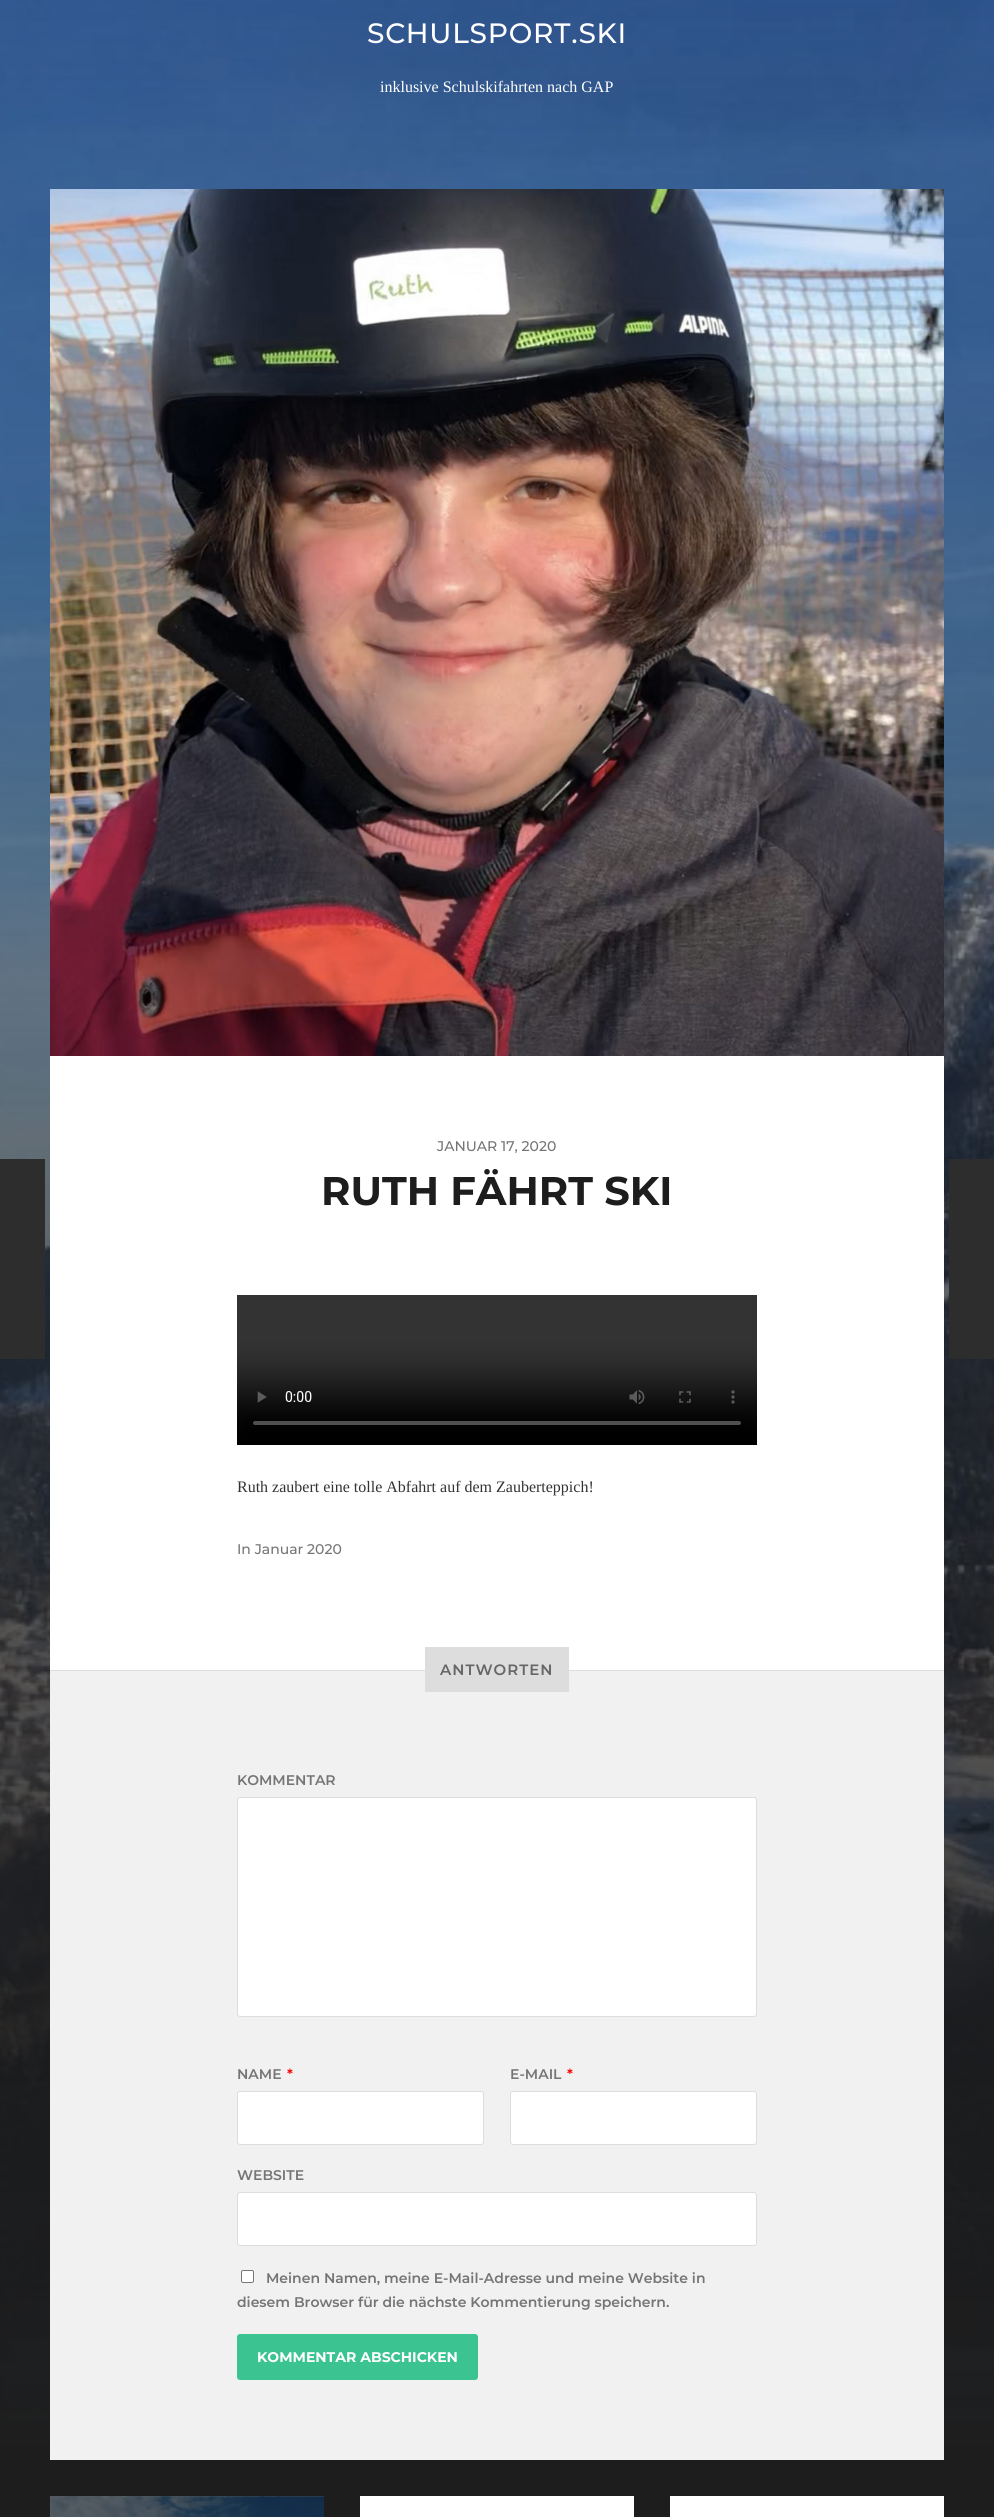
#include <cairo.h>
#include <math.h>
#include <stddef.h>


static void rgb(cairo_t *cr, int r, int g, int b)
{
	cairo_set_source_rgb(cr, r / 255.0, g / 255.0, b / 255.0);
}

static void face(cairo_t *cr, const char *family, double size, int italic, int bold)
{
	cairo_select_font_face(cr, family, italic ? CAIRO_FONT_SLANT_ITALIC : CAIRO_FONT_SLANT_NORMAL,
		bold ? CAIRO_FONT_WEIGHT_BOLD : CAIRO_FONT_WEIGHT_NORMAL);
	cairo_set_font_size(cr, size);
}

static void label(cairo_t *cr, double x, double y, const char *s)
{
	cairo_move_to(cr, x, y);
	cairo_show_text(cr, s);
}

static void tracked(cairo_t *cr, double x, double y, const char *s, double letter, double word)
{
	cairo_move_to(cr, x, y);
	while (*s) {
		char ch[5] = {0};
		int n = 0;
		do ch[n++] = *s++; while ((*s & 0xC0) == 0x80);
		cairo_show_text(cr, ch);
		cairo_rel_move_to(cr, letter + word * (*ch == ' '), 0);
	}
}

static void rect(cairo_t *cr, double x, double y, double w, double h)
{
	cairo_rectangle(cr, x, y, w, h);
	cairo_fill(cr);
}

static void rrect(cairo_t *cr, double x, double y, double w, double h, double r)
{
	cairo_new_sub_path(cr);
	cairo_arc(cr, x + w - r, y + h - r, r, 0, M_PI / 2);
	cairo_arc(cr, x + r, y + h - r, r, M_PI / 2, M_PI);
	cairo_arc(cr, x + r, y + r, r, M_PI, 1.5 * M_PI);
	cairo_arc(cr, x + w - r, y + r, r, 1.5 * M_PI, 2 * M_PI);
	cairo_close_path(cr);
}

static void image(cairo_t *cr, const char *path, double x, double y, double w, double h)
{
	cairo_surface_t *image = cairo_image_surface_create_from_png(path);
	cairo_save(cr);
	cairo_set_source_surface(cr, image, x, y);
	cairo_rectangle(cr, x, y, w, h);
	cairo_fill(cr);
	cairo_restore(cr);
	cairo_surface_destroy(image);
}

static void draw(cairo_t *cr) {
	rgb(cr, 29, 29, 29);
	cairo_paint(cr);
	image(cr, "image0.png", 0, 0, 994, 2463);
	face(cr, "Montserrat Medium", 28, 0, 0);
	rgb(cr, 255, 255, 255);
	tracked(cr, 367, 43, "SCHULSPORT.SKI", 0.75, 0);
	face(cr, "Liberation Serif", 16, 0, 0);
	label(cr, 380, 92, "inklusive Schulskifahrten nach GAP");
	rect(cr, 50, 1056, 894, 614);
	image(cr, "image1.png", 50, 189, 894, 867);
	face(cr, "Montserrat Medium", 14, 0, 0);
	rgb(cr, 117, 117, 117);
	label(cr, 437, 1151, "JANUAR 17, 2020");
	face(cr, "Montserrat", 40, 0, 1);
	rgb(cr, 29, 29, 29);
	label(cr, 321, 1205, "RUTH FÄHRT SKI");
	rgb(cr, 45, 45, 45);
	rect(cr, 0, 1159, 45, 200);
	rect(cr, 949, 1159, 45, 200);
	image(cr, "image2.png", 237, 1295, 520, 150);
	face(cr, "Liberation Serif", 16, 0, 0);
	rgb(cr, 51, 51, 51);
	label(cr, 237, 1492, "Ruth zaubert eine tolle Abfahrt auf dem Zauberteppich!");
	face(cr, "Montserrat Medium", 14, 0, 0);
	rgb(cr, 117, 117, 117);
	label(cr, 237, 1554, "In Januar 2020");
	rgb(cr, 241, 241, 241);
	rect(cr, 50, 1671, 894, 789);
	rgb(cr, 221, 221, 221);
	rect(cr, 50, 1670, 894, 1);
	rect(cr, 425, 1647, 144, 45);
	face(cr, "Montserrat SemiBold", 15, 0, 0);
	rgb(cr, 102, 102, 102);
	tracked(cr, 440, 1675, "ANTWORTEN", 1, 0);
	face(cr, "Montserrat SemiBold", 14, 0, 0);
	rgb(cr, 117, 117, 117);
	label(cr, 237, 1785, "KOMMENTAR");
	rgb(cr, 255, 255, 255);
	rrect(cr, 237.5, 1797.5, 519, 219, 2.5);
	cairo_fill_preserve(cr);
	rgb(cr, 221, 221, 221);
	cairo_set_line_width(cr, 1);
	cairo_stroke(cr);
	rgb(cr, 117, 117, 117);
	label(cr, 237, 2079, "NAME");
	rgb(cr, 255, 0, 0);
	label(cr, 287, 2079, "*");
	rgb(cr, 255, 255, 255);
	rrect(cr, 237.5, 2091.5, 246, 53, 2.5);
	cairo_fill_preserve(cr);
	rgb(cr, 221, 221, 221);
	cairo_stroke(cr);
	rgb(cr, 117, 117, 117);
	label(cr, 510, 2079, "E-MAIL");
	rgb(cr, 255, 0, 0);
	label(cr, 567, 2079, "*");
	rgb(cr, 255, 255, 255);
	rrect(cr, 510.5, 2091.5, 246, 53, 2.5);
	cairo_fill_preserve(cr);
	rgb(cr, 221, 221, 221);
	cairo_stroke(cr);
	rgb(cr, 117, 117, 117);
	label(cr, 237, 2180, "WEBSITE");
	rgb(cr, 255, 255, 255);
	rrect(cr, 237.5, 2192.5, 519, 53, 2.5);
	cairo_fill_preserve(cr);
	rgb(cr, 221, 221, 221);
	cairo_stroke(cr);
	rgb(cr, 255, 255, 255);
	rrect(cr, 241.5, 2270.5, 12, 12, 1.5);
	cairo_fill_preserve(cr);
	rgb(cr, 118, 118, 118);
	cairo_stroke(cr);
	rgb(cr, 117, 117, 117);
	label(cr, 266, 2283, "Meinen Namen, meine E-Mail-Adresse und meine Website in");
	label(cr, 237, 2307, "diesem Browser für die nächste Kommentierung speichern.");
	rgb(cr, 59, 196, 146);
	rrect(cr, 237, 2334, 241, 46, 3);
	cairo_fill(cr);
	face(cr, "Montserrat", 14, 0, 1);
	rgb(cr, 255, 255, 255);
	label(cr, 257, 2362, "KOMMENTAR ABSCHICKEN");
	image(cr, "image3.png", 50, 2496, 274, 21);
	rect(cr, 360, 2496, 274, 21);
	rect(cr, 670, 2496, 274, 21);
}

int main(void) {
	cairo_surface_t *surface = cairo_image_surface_create(CAIRO_FORMAT_RGB24, 994, 2517);
	cairo_t *cr = cairo_create(surface);
	cairo_font_options_t *options = cairo_font_options_create();
	cairo_font_options_set_hint_metrics(options, CAIRO_HINT_METRICS_OFF);
	cairo_font_options_set_hint_style(options, CAIRO_HINT_STYLE_NONE);
	cairo_set_font_options(cr, options);
	cairo_set_miter_limit(cr, 4);
	draw(cr);
	cairo_surface_write_to_png(surface, "render.png");
	cairo_font_options_destroy(options);
	cairo_destroy(cr);
	cairo_surface_destroy(surface);
	return 0;
}
